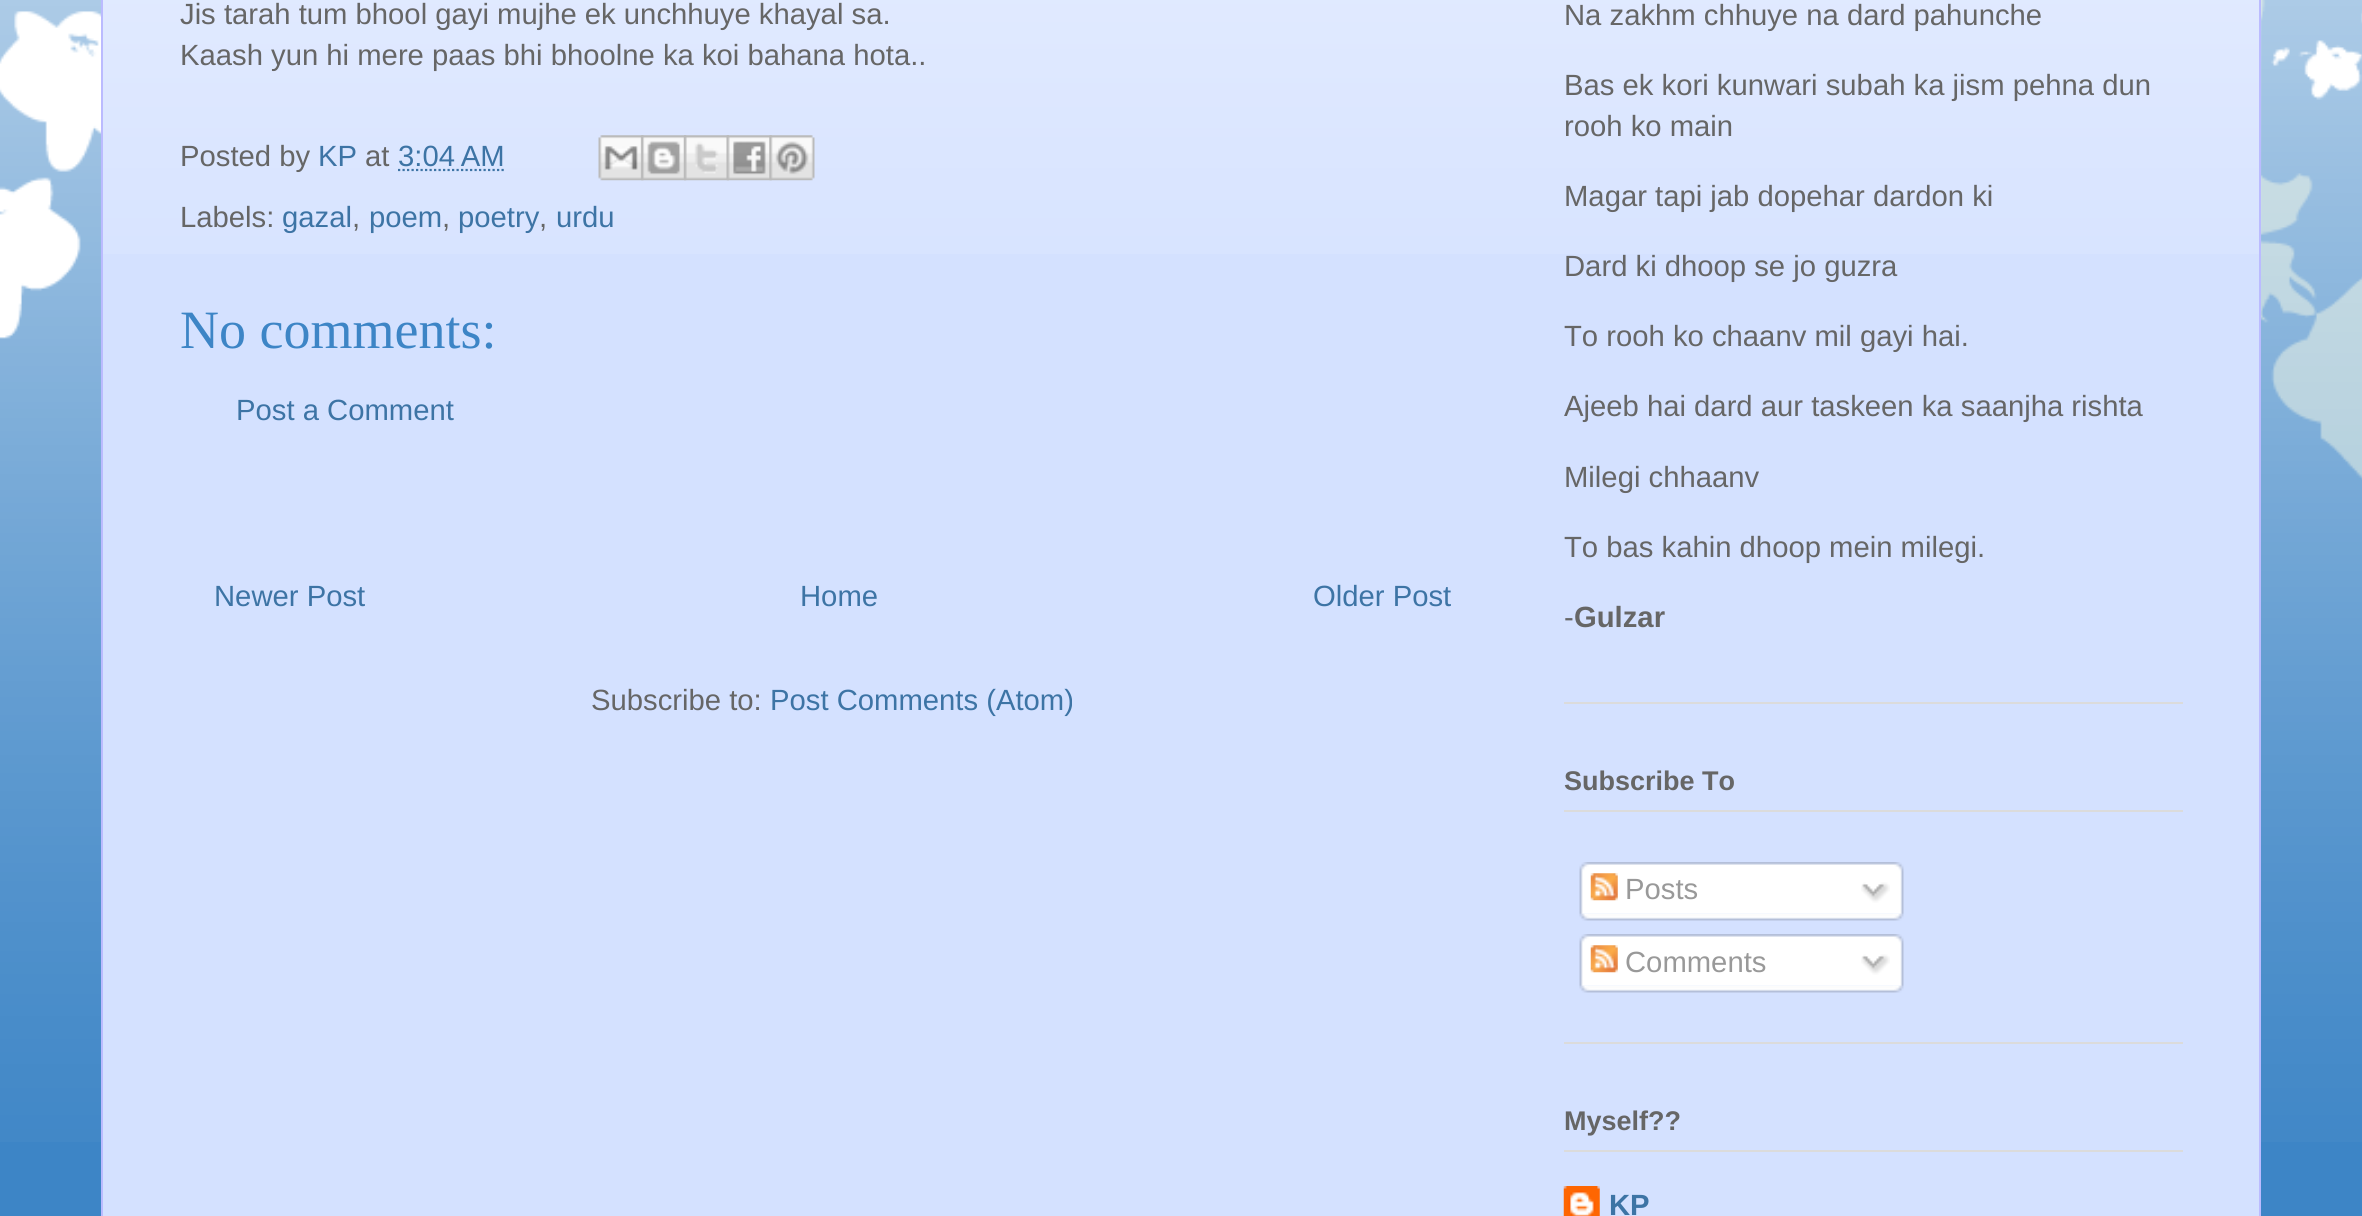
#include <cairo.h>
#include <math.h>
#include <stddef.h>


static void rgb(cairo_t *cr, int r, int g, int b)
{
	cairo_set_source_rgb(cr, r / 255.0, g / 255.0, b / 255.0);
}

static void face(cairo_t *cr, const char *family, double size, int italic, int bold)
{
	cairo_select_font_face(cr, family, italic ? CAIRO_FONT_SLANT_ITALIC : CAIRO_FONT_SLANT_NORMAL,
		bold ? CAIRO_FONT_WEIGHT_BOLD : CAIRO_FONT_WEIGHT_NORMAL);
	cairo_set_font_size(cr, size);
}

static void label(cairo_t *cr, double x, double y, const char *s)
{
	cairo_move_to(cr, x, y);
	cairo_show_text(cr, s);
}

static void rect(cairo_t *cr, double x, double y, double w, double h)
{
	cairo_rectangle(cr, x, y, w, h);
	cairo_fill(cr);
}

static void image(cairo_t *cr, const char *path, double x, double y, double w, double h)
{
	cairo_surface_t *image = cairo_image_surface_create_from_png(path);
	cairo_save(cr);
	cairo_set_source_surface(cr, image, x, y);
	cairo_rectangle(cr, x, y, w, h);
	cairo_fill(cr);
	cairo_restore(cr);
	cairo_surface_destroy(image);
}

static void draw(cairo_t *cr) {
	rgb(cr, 61, 133, 198);
	cairo_paint(cr);
	image(cr, "image0.png", 0, 0, 2362, 1142);
	rgb(cr, 212, 225, 255);
	rect(cr, 103, 0, 2156, 1216);
	image(cr, "image1.png", 103, 0, 2159, 254);
	rgb(cr, 187, 187, 255);
	rect(cr, 2259, 0, 2, 1216);
	rect(cr, 101, 0, 2, 1216);
	face(cr, "Liberation Sans", 29.25, 0, 0);
	rgb(cr, 102, 102, 102);
	label(cr, 180, 24, "Jis tarah tum bhool gayi mujhe ek unchhuye khayal sa.");
	label(cr, 180, 65, "Kaash yun hi mere paas bhi bhoolne ka koi bahana hota..");
	label(cr, 180, 166, "Posted by");
	rgb(cr, 61, 116, 165);
	label(cr, 318, 166, "KP");
	rgb(cr, 102, 102, 102);
	label(cr, 365, 166, "at");
	rgb(cr, 61, 116, 165);
	label(cr, 398, 166, "3:04 AM");
	cairo_new_path(cr);
	cairo_move_to(cr, 398, 170);
	cairo_line_to(cr, 504.5, 170);
	cairo_set_line_width(cr, 2.2);
	cairo_set_dash(cr, (double[]){2.25, 2.25}, 2, 0);
	cairo_stroke(cr);
	image(cr, "image2.png", 598, 135, 46, 46);
	image(cr, "image3.png", 641, 135, 46, 46);
	image(cr, "image4.png", 684, 135, 45, 46);
	image(cr, "image5.png", 726, 135, 46, 46);
	image(cr, "image6.png", 769, 135, 46, 46);
	rgb(cr, 102, 102, 102);
	label(cr, 180, 227, "Labels:");
	rgb(cr, 61, 116, 165);
	label(cr, 282, 227, "gazal");
	rgb(cr, 102, 102, 102);
	label(cr, 352, 227, ",");
	rgb(cr, 61, 116, 165);
	label(cr, 369, 227, "poem");
	rgb(cr, 102, 102, 102);
	label(cr, 442, 227, ",");
	rgb(cr, 61, 116, 165);
	label(cr, 458, 227, "poetry");
	rgb(cr, 102, 102, 102);
	label(cr, 539, 227, ",");
	rgb(cr, 61, 116, 165);
	label(cr, 556, 227, "urdu");
	face(cr, "Liberation Serif", 54, 0, 0);
	rgb(cr, 61, 133, 198);
	label(cr, 180, 348, "No comments:");
	face(cr, "Liberation Sans", 29.25, 0, 0);
	rgb(cr, 61, 116, 165);
	label(cr, 236, 420, "Post a Comment");
	label(cr, 214, 606, "Newer Post");
	label(cr, 800, 606, "Home");
	label(cr, 1313, 606, "Older Post");
	rgb(cr, 102, 102, 102);
	label(cr, 591, 710, "Subscribe to:");
	rgb(cr, 61, 116, 165);
	label(cr, 770, 710, "Post Comments (Atom)");
	rgb(cr, 219, 219, 219);
	rect(cr, 1564, 702, 619, 2);
	rgb(cr, 102, 102, 102);
	label(cr, 1564, 25, "Na zakhm chhuye na dard pahunche");
	label(cr, 1564, 95, "Bas ek kori kunwari subah ka jism pehna dun");
	label(cr, 1564, 136, "rooh ko main");
	label(cr, 1564, 206, "Magar tapi jab dopehar dardon ki");
	label(cr, 1564, 276, "Dard ki dhoop se jo guzra");
	label(cr, 1564, 346, "To rooh ko chaanv mil gayi hai.");
	label(cr, 1564, 416, "Ajeeb hai dard aur taskeen ka saanjha rishta");
	label(cr, 1564, 487, "Milegi chhaanv");
	label(cr, 1564, 557, "To bas kahin dhoop mein milegi.");
	label(cr, 1564, 627, "-");
	face(cr, "Liberation Sans", 29.25, 0, 1);
	label(cr, 1574, 627, "Gulzar");
	rgb(cr, 219, 219, 219);
	rect(cr, 1564, 1042, 619, 2);
	rect(cr, 1564, 810, 619, 2);
	face(cr, "Liberation Sans", 27, 0, 1);
	rgb(cr, 102, 102, 102);
	label(cr, 1564, 790, "Subscribe To");
	image(cr, "image7.png", 1579, 862, 325, 52);
	image(cr, "image8.png", 1590, 873, 28, 28);
	face(cr, "Liberation Sans", 29.25, 0, 0);
	rgb(cr, 153, 153, 153);
	label(cr, 1625, 899, "Posts");
	image(cr, "image9.png", 1861, 882, 29, 21);
	image(cr, "image10.png", 1579, 913, 325, 8);
	image(cr, "image7.png", 1579, 934, 325, 52);
	image(cr, "image8.png", 1590, 945, 28, 28);
	label(cr, 1625, 972, "Comments");
	image(cr, "image9.png", 1861, 954, 29, 21);
	image(cr, "image10.png", 1579, 985, 325, 8);
	rgb(cr, 219, 219, 219);
	rect(cr, 1564, 1150, 619, 2);
	face(cr, "Liberation Sans", 27, 0, 1);
	rgb(cr, 102, 102, 102);
	label(cr, 1564, 1130, "Myself?\077");
	image(cr, "image11.png", 1563, 1186, 37, 30);
	face(cr, "Liberation Sans", 29.25, 0, 1);
	rgb(cr, 61, 116, 165);
	label(cr, 1609, 1215, "KP");
}

int main(void) {
	cairo_surface_t *surface = cairo_image_surface_create(CAIRO_FORMAT_RGB24, 2362, 1216);
	cairo_t *cr = cairo_create(surface);
	cairo_font_options_t *options = cairo_font_options_create();
	cairo_font_options_set_hint_metrics(options, CAIRO_HINT_METRICS_OFF);
	cairo_font_options_set_hint_style(options, CAIRO_HINT_STYLE_NONE);
	cairo_set_font_options(cr, options);
	cairo_set_miter_limit(cr, 4);
	draw(cr);
	cairo_surface_write_to_png(surface, "render.png");
	cairo_font_options_destroy(options);
	cairo_destroy(cr);
	cairo_surface_destroy(surface);
	return 0;
}
